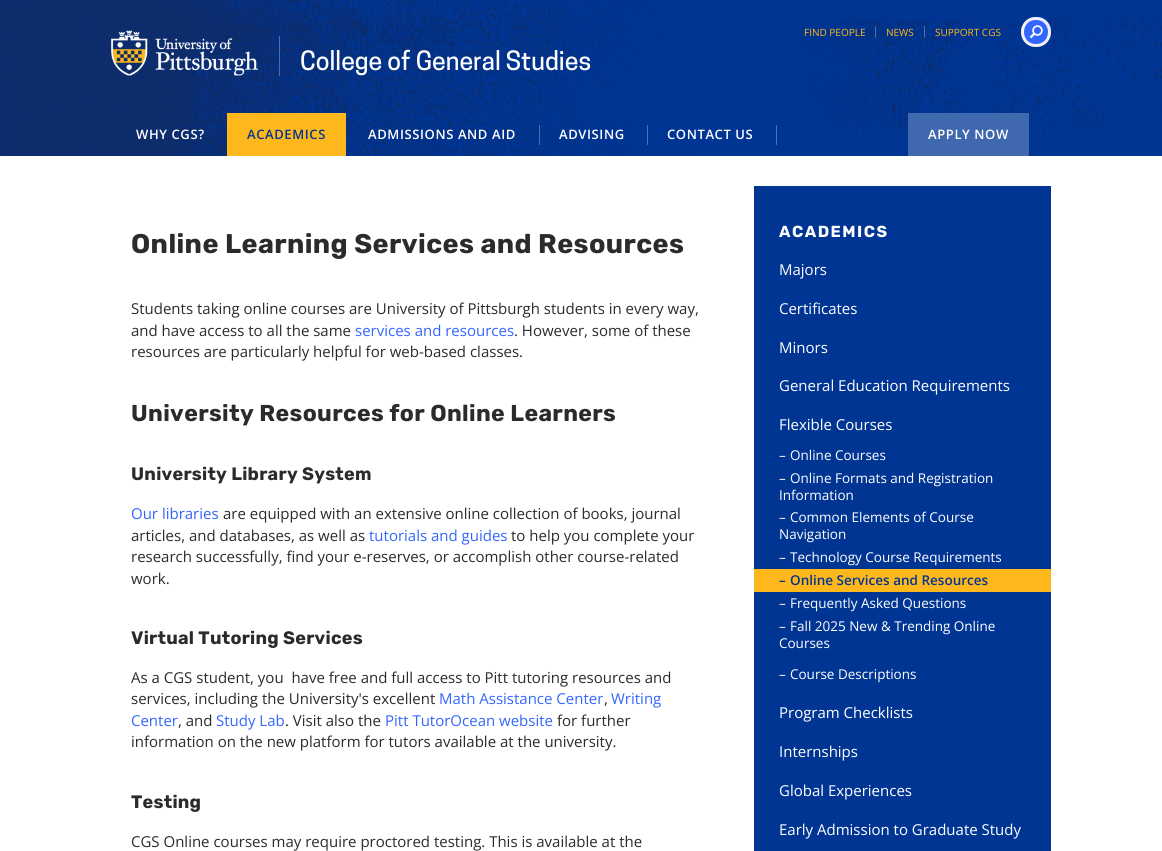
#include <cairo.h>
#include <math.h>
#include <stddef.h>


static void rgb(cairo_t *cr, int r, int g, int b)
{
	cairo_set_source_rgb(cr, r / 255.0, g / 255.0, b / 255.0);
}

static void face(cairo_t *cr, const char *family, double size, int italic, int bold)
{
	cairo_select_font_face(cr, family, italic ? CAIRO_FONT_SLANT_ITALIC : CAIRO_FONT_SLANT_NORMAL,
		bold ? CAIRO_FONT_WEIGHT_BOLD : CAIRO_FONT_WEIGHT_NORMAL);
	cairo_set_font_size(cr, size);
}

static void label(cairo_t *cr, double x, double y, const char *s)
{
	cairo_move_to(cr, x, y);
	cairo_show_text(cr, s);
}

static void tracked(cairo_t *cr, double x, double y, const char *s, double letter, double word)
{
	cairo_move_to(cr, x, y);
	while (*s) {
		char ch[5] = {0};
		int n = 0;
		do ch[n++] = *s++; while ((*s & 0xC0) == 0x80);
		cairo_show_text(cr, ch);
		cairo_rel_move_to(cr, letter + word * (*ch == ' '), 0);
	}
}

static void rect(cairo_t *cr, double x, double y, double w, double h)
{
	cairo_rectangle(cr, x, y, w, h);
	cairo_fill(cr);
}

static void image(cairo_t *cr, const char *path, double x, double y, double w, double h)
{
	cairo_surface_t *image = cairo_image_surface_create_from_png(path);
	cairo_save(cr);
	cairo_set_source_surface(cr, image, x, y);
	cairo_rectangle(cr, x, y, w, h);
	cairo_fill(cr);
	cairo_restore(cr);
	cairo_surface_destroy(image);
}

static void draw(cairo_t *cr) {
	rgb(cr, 255, 255, 255);
	cairo_paint(cr);
	rgb(cr, 0, 53, 148);
	rect(cr, 0, 0, 1162, 156);
	image(cr, "image0.png", 0, 0, 1162, 156);
	cairo_set_source_rgba(cr, 1, 1, 1, 0.3);
	rect(cr, 875, 26, 1, 12);
	face(cr, "Open Sans", 10, 0, 0);
	rgb(cr, 255, 184, 28);
	label(cr, 804, 36, "FIND PEOPLE");
	cairo_set_source_rgba(cr, 1, 1, 1, 0.3);
	rect(cr, 924, 26, 1, 12);
	rgb(cr, 255, 184, 28);
	label(cr, 886, 36, "NEWS");
	label(cr, 935, 36, "SUPPORT CGS");
	rgb(cr, 51, 102, 255);
	cairo_new_path(cr);
	cairo_arc(cr, 1037.5, 30.5, 13.5, 0, 2 * M_PI);
	cairo_fill(cr);
	cairo_new_path(cr);
	cairo_move_to(cr, 1036, 17);
	cairo_curve_to(cr, 1027.5, 17, 1021, 23.5, 1021, 32);
	cairo_curve_to(cr, 1021, 40.5, 1027.5, 47, 1036, 47);
	cairo_curve_to(cr, 1044.5, 47, 1051, 40.5, 1051, 32);
	cairo_curve_to(cr, 1051, 23.5, 1044.5, 17, 1036, 17);
	cairo_close_path(cr);
	cairo_fill(cr);
	cairo_new_path(cr);
	cairo_move_to(cr, 1036, 18.5);
	cairo_curve_to(cr, 1018, 18.5, 1018, 45.5, 1036, 45.5);
	cairo_curve_to(cr, 1054, 45.5, 1054, 18.5, 1036, 18.5);
	cairo_close_path(cr);
	rgb(cr, 242, 242, 242);
	cairo_set_line_width(cr, 3);
	cairo_stroke(cr);
	image(cr, "image1.png", 1029, 25, 14, 14);
	image(cr, "image2.png", 111, 30, 147, 46);
	cairo_set_source_rgba(cr, 1, 1, 1, 0.3);
	rect(cr, 279, 36, 1, 40);
	face(cr, "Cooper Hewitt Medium", 25, 0, 0);
	rgb(cr, 255, 255, 255);
	label(cr, 300, 70, "College of General Studies");
	face(cr, "Open Sans SemiBold", 13, 0, 0);
	tracked(cr, 136, 139, "WHY CGS?", 0.6, 0);
	rgb(cr, 255, 184, 28);
	rect(cr, 227, 113, 119, 43);
	rgb(cr, 0, 53, 148);
	tracked(cr, 247, 139, "ACADEMICS", 0.6, 0);
	rgb(cr, 255, 255, 255);
	tracked(cr, 368, 139, "ADMISSIONS AND AID", 0.6, 0);
	cairo_set_source_rgba(cr, 1, 1, 1, 0.3);
	rect(cr, 539, 125, 1, 20);
	rgb(cr, 255, 255, 255);
	tracked(cr, 559, 139, "ADVISING", 0.6, 0);
	cairo_set_source_rgba(cr, 1, 1, 1, 0.3);
	rect(cr, 647, 125, 1, 20);
	rgb(cr, 255, 255, 255);
	tracked(cr, 667, 139, "CONTACT US", 0.6, 0);
	rgb(cr, 77, 114, 180);
	rect(cr, 776, 125, 1, 20);
	rgb(cr, 64, 104, 175);
	rect(cr, 908, 113, 121, 43);
	rgb(cr, 255, 255, 255);
	tracked(cr, 928, 139, "APPLY NOW", 0.6, 0);
	face(cr, "Rubik Light", 27, 0, 0);
	rgb(cr, 43, 43, 43);
	tracked(cr, 131, 253, "Online Learning Services and Resources", 0.4, 0);
	face(cr, "Open Sans", 15, 0, 0);
	label(cr, 131, 314, "Students taking online courses are University of Pittsburgh students in every way,");
	label(cr, 131, 336, "and have access to all the same");
	rgb(cr, 51, 102, 255);
	label(cr, 355, 336, "services and resources");
	rgb(cr, 43, 43, 43);
	label(cr, 514, 336, ". However, some of these");
	label(cr, 131, 357, "resources are particularly helpful for web-based classes.");
	face(cr, "Rubik Light", 23, 0, 0);
	tracked(cr, 131, 421, "University Resources for Online Learners", 0.35, 0);
	face(cr, "Rubik Light", 18, 0, 0);
	tracked(cr, 131, 480, "University Library System", 0.25, 0);
	face(cr, "Open Sans", 15, 0, 0);
	rgb(cr, 51, 102, 255);
	label(cr, 131, 519, "Our libraries");
	rgb(cr, 43, 43, 43);
	label(cr, 223, 519, "are equipped with an extensive online collection of books, journal");
	label(cr, 131, 541, "articles, and databases, as well as");
	rgb(cr, 51, 102, 255);
	label(cr, 369, 541, "tutorials and guides");
	rgb(cr, 43, 43, 43);
	label(cr, 511, 541, "to help you complete your");
	label(cr, 131, 562, "research successfully, find your e-reserves, or accomplish other course-related");
	label(cr, 131, 584, "work.");
	face(cr, "Rubik Light", 18, 0, 0);
	tracked(cr, 131, 644, "Virtual Tutoring Services", 0.25, 0);
	face(cr, "Open Sans", 15, 0, 0);
	label(cr, 131, 683, "As a CGS student, you  have free and full access to Pitt tutoring resources and");
	label(cr, 131, 704, "services, including the University's excellent");
	rgb(cr, 51, 102, 255);
	label(cr, 439, 704, "Math Assistance Center");
	rgb(cr, 43, 43, 43);
	label(cr, 604, 704, ",");
	rgb(cr, 51, 102, 255);
	label(cr, 611, 704, "Writing");
	label(cr, 131, 726, "Center");
	rgb(cr, 43, 43, 43);
	label(cr, 178, 726, ", and");
	rgb(cr, 51, 102, 255);
	label(cr, 216, 726, "Study Lab");
	rgb(cr, 43, 43, 43);
	label(cr, 285, 726, ". Visit also the");
	rgb(cr, 51, 102, 255);
	label(cr, 385, 726, "Pitt TutorOcean website");
	rgb(cr, 43, 43, 43);
	label(cr, 557, 726, "for further");
	label(cr, 131, 747, "information on the new platform for tutors available at the university.");
	face(cr, "Rubik Light", 18, 0, 0);
	tracked(cr, 131, 808, "Testing", 0.25, 0);
	face(cr, "Open Sans", 15, 0, 0);
	label(cr, 131, 847, "CGS Online courses may require proctored testing. This is available at the");
	rgb(cr, 0, 53, 148);
	rect(cr, 754, 186, 297, 665);
	face(cr, "Rubik Light", 16, 0, 0);
	rgb(cr, 255, 255, 255);
	tracked(cr, 779, 237, "ACADEMICS", 1.5, 0);
	face(cr, "Open Sans", 15, 0, 0);
	label(cr, 779, 275, "Majors");
	label(cr, 779, 314, "Certificates");
	label(cr, 779, 353, "Minors");
	label(cr, 779, 391, "General Education Requirements");
	label(cr, 779, 430, "Flexible Courses");
	face(cr, "Open Sans", 13.5, 0, 0);
	label(cr, 779, 460, "–");
	label(cr, 790, 460, "Online Courses");
	label(cr, 779, 483, "–");
	label(cr, 790, 483, "Online Formats and Registration");
	label(cr, 779, 500, "Information");
	label(cr, 779, 522, "–");
	label(cr, 790, 522, "Common Elements of Course");
	label(cr, 779, 539, "Navigation");
	label(cr, 779, 562, "–");
	label(cr, 790, 562, "Technology Course Requirements");
	rgb(cr, 255, 184, 28);
	rect(cr, 754, 569, 297, 23);
	face(cr, "Open Sans SemiBold", 13.5, 0, 0);
	rgb(cr, 0, 53, 148);
	label(cr, 779, 585, "–");
	label(cr, 790, 585, "Online Services and Resources");
	face(cr, "Open Sans", 13.5, 0, 0);
	rgb(cr, 255, 255, 255);
	label(cr, 779, 608, "–");
	label(cr, 790, 608, "Frequently Asked Questions");
	label(cr, 779, 631, "–");
	label(cr, 790, 631, "Fall 2025 New & Trending Online");
	label(cr, 779, 648, "Courses");
	label(cr, 779, 679, "–");
	label(cr, 790, 679, "Course Descriptions");
	face(cr, "Open Sans", 15, 0, 0);
	label(cr, 779, 718, "Program Checklists");
	label(cr, 779, 757, "Internships");
	label(cr, 779, 796, "Global Experiences");
	label(cr, 779, 835, "Early Admission to Graduate Study");
}

int main(void) {
	cairo_surface_t *surface = cairo_image_surface_create(CAIRO_FORMAT_RGB24, 1162, 851);
	cairo_t *cr = cairo_create(surface);
	cairo_font_options_t *options = cairo_font_options_create();
	cairo_font_options_set_hint_metrics(options, CAIRO_HINT_METRICS_OFF);
	cairo_font_options_set_hint_style(options, CAIRO_HINT_STYLE_NONE);
	cairo_set_font_options(cr, options);
	cairo_set_miter_limit(cr, 4);
	draw(cr);
	cairo_surface_write_to_png(surface, "render.png");
	cairo_font_options_destroy(options);
	cairo_destroy(cr);
	cairo_surface_destroy(surface);
	return 0;
}
